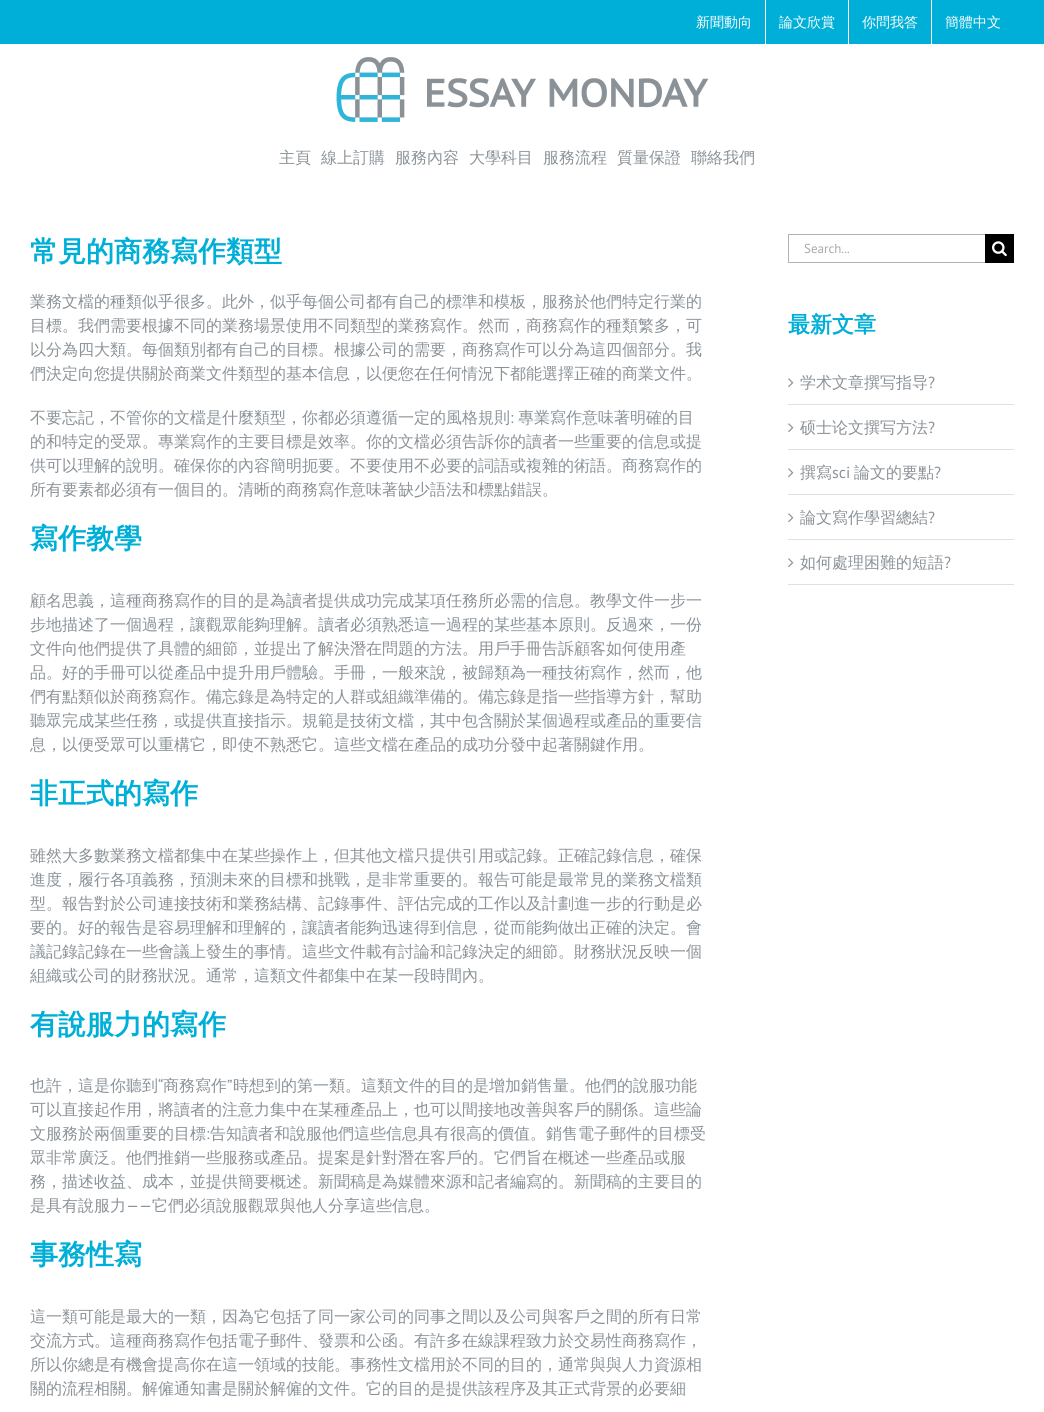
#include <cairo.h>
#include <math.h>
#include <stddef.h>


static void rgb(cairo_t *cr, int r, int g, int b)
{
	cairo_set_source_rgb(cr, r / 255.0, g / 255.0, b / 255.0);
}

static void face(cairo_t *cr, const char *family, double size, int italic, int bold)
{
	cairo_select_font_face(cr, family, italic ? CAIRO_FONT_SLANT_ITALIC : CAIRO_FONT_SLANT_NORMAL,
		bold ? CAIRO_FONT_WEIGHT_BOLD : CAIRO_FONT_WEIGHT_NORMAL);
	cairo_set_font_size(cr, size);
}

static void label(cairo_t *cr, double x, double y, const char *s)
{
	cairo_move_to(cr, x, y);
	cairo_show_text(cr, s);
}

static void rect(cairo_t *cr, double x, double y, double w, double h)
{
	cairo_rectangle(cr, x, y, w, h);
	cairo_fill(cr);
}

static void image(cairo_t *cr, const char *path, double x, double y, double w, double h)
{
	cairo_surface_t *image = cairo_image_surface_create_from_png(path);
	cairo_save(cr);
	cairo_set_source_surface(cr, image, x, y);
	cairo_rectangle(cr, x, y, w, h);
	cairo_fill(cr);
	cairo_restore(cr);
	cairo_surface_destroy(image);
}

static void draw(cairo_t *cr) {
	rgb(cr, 255, 255, 255);
	cairo_paint(cr);
	rgb(cr, 0, 175, 216);
	rect(cr, 0, 0, 1044, 44);
	face(cr, "WenQuanYi Zen Hei Medium", 14, 0, 0);
	rgb(cr, 255, 255, 255);
	label(cr, 696, 27, "新聞動向");
	rect(cr, 765, 0, 1, 44);
	label(cr, 779, 27, "論文欣賞");
	rect(cr, 848, 0, 1, 44);
	label(cr, 862, 27, "你問我答");
	rect(cr, 931, 0, 1, 44);
	label(cr, 945, 27, "簡體中文");
	image(cr, "image0.png", 336, 57, 373, 65);
	face(cr, "WenQuanYi Zen Hei Medium", 16, 0, 0);
	rgb(cr, 138, 146, 152);
	label(cr, 279, 163, "主頁");
	label(cr, 321, 163, "線上訂購");
	label(cr, 395, 163, "服務內容");
	label(cr, 469, 163, "大學科目");
	label(cr, 543, 163, "服務流程");
	label(cr, 617, 163, "質量保證");
	label(cr, 691, 163, "聯絡我們");
	face(cr, "WenQuanYi Zen Hei", 28, 0, 1);
	rgb(cr, 0, 175, 216);
	label(cr, 30, 261, "常見的商務寫作類型");
	face(cr, "WenQuanYi Zen Hei Medium", 16, 0, 0);
	rgb(cr, 138, 146, 152);
	label(cr, 30, 307, "業務文檔的種類似乎很多。此外，似乎每個公司都有自己的標準和模板，服務於他們特定行業的");
	label(cr, 30, 331, "目標。我們需要根據不同的業務場景使用不同類型的業務寫作。然而，商務寫作的種類繁多，可");
	label(cr, 30, 355, "以分為四大類。每個類別都有自己的目標。根據公司的需要，商務寫作可以分為這四個部分。我");
	label(cr, 30, 379, "們決定向您提供關於商業文件類型的基本信息，以便您在任何情況下都能選擇正確的商業文件。");
	label(cr, 30, 423, "不要忘記，不管你的文檔是什麼類型，你都必須遵循一定的風格規則");
	face(cr, "PT Sans", 16, 0, 0);
	label(cr, 510, 423, ":");
	face(cr, "WenQuanYi Zen Hei Medium", 16, 0, 0);
	label(cr, 518, 423, "專業寫作意味著明確的目");
	label(cr, 30, 447, "的和特定的受眾。專業寫作的主要目標是效率。你的文檔必須告訴你的讀者一些重要的信息或提");
	label(cr, 30, 471, "供可以理解的說明。確保你的內容簡明扼要。不要使用不必要的詞語或複雜的術語。商務寫作的");
	label(cr, 30, 495, "所有要素都必須有一個目的。清晰的商務寫作意味著缺少語法和標點錯誤。");
	face(cr, "WenQuanYi Zen Hei", 28, 0, 1);
	rgb(cr, 0, 175, 216);
	label(cr, 30, 548, "寫作教學");
	face(cr, "WenQuanYi Zen Hei Medium", 16, 0, 0);
	rgb(cr, 138, 146, 152);
	label(cr, 30, 606, "顧名思義，這種商務寫作的目的是為讀者提供成功完成某項任務所必需的信息。教學文件一步一");
	label(cr, 30, 630, "步地描述了一個過程，讓觀眾能夠理解。讀者必須熟悉這一過程的某些基本原則。反過來，一份");
	label(cr, 30, 654, "文件向他們提供了具體的細節，並提出了解決潛在問題的方法。用戶手冊告訴顧客如何使用產");
	label(cr, 30, 678, "品。好的手冊可以從產品中提升用戶體驗。手冊，一般來說，被歸類為一種技術寫作，然而，他");
	label(cr, 30, 702, "們有點類似於商務寫作。備忘錄是為特定的人群或組織準備的。備忘錄是指一些指導方針，幫助");
	label(cr, 30, 726, "聽眾完成某些任務，或提供直接指示。規範是技術文檔，其中包含關於某個過程或產品的重要信");
	label(cr, 30, 750, "息，以便受眾可以重構它，即使不熟悉它。這些文檔在產品的成功分發中起著關鍵作用。");
	face(cr, "WenQuanYi Zen Hei", 28, 0, 1);
	rgb(cr, 0, 175, 216);
	label(cr, 30, 803, "非正式的寫作");
	face(cr, "WenQuanYi Zen Hei Medium", 16, 0, 0);
	rgb(cr, 138, 146, 152);
	label(cr, 30, 861, "雖然大多數業務文檔都集中在某些操作上，但其他文檔只提供引用或記錄。正確記錄信息，確保");
	label(cr, 30, 885, "進度，履行各項義務，預測未來的目標和挑戰，是非常重要的。報告可能是最常見的業務文檔類");
	label(cr, 30, 909, "型。報告對於公司連接技術和業務結構、記錄事件、評估完成的工作以及計劃進一步的行動是必");
	label(cr, 30, 933, "要的。好的報告是容易理解和理解的，讓讀者能夠迅速得到信息，從而能夠做出正確的決定。會");
	label(cr, 30, 957, "議記錄記錄在一些會議上發生的事情。這些文件載有討論和記錄決定的細節。財務狀況反映一個");
	label(cr, 30, 981, "組織或公司的財務狀況。通常，這類文件都集中在某一段時間內。");
	face(cr, "WenQuanYi Zen Hei", 28, 0, 1);
	rgb(cr, 0, 175, 216);
	label(cr, 30, 1034, "有說服力的寫作");
	face(cr, "WenQuanYi Zen Hei Medium", 16, 0, 0);
	rgb(cr, 138, 146, 152);
	label(cr, 30, 1091, "也許，這是你聽到");
	face(cr, "PT Sans", 16, 0, 0);
	label(cr, 158, 1091, "“");
	face(cr, "WenQuanYi Zen Hei Medium", 16, 0, 0);
	label(cr, 163, 1091, "商務寫作");
	face(cr, "PT Sans", 16, 0, 0);
	label(cr, 227, 1091, "”");
	face(cr, "WenQuanYi Zen Hei Medium", 16, 0, 0);
	label(cr, 233, 1091, "時想到的第一類。這類文件的目的是增加銷售量。他們的說服功能");
	label(cr, 30, 1115, "可以直接起作用，將讀者的注意力集中在某種產品上，也可以間接地改善與客戶的關係。這些論");
	label(cr, 30, 1139, "文服務於兩個重要的目標");
	face(cr, "PT Sans", 16, 0, 0);
	label(cr, 206, 1139, ":");
	face(cr, "WenQuanYi Zen Hei Medium", 16, 0, 0);
	label(cr, 210, 1139, "告知讀者和說服他們這些信息具有很高的價值。銷售電子郵件的目標受");
	label(cr, 30, 1163, "眾非常廣泛。他們推銷一些服務或產品。提案是針對潛在客戶的。它們旨在概述一些產品或服");
	label(cr, 30, 1187, "務，描述收益、成本，並提供簡要概述。新聞稿是為媒體來源和記者編寫的。新聞稿的主要目的");
	label(cr, 30, 1211, "是具有說服力");
	face(cr, "PT Sans", 16, 0, 0);
	label(cr, 126, 1211, "——");
	face(cr, "WenQuanYi Zen Hei Medium", 16, 0, 0);
	label(cr, 152, 1211, "它們必須說服觀眾與他人分享這些信息。");
	face(cr, "WenQuanYi Zen Hei", 28, 0, 1);
	rgb(cr, 0, 175, 216);
	label(cr, 30, 1264, "事務性寫");
	face(cr, "WenQuanYi Zen Hei Medium", 16, 0, 0);
	rgb(cr, 138, 146, 152);
	label(cr, 30, 1322, "這一類可能是最大的一類，因為它包括了同一家公司的同事之間以及公司與客戶之間的所有日常");
	label(cr, 30, 1346, "交流方式。這種商務寫作包括電子郵件、發票和公函。有許多在線課程致力於交易性商務寫作，");
	label(cr, 30, 1370, "所以你總是有機會提高你在這一領域的技能。事務性文檔用於不同的目的，通常與與人力資源相");
	label(cr, 30, 1394, "關的流程相關。解僱通知書是關於解僱的文件。它的目的是提供該程序及其正式背景的必要細");
	rgb(cr, 172, 180, 188);
	rect(cr, 788, 234, 197, 1);
	rect(cr, 788, 262, 197, 1);
	rect(cr, 788, 234, 1, 29);
	face(cr, "PT Sans", 13, 0, 0);
	rgb(cr, 169, 169, 169);
	label(cr, 804, 253, "Search...");
	rgb(cr, 0, 0, 0);
	rect(cr, 985, 234, 29, 29);
	image(cr, "image1.png", 992, 241, 15, 16);
	face(cr, "WenQuanYi Zen Hei", 22, 0, 1);
	rgb(cr, 0, 175, 216);
	label(cr, 788, 332, "最新文章");
	rgb(cr, 224, 222, 222);
	rect(cr, 788, 404, 226, 1);
	image(cr, "image2.png", 788, 378, 6, 10);
	face(cr, "WenQuanYi Zen Hei Medium", 16, 0, 0);
	rgb(cr, 138, 146, 152);
	label(cr, 800, 388, "学术文章撰写指导");
	face(cr, "PT Sans", 16, 0, 0);
	label(cr, 928, 388, "?");
	rgb(cr, 224, 222, 222);
	rect(cr, 788, 449, 226, 1);
	image(cr, "image2.png", 788, 423, 6, 10);
	face(cr, "WenQuanYi Zen Hei Medium", 16, 0, 0);
	rgb(cr, 138, 146, 152);
	label(cr, 800, 433, "硕士论文撰写方法");
	face(cr, "PT Sans", 16, 0, 0);
	label(cr, 928, 433, "?");
	rgb(cr, 224, 222, 222);
	rect(cr, 788, 494, 226, 1);
	image(cr, "image2.png", 788, 468, 6, 10);
	face(cr, "WenQuanYi Zen Hei Medium", 16, 0, 0);
	rgb(cr, 138, 146, 152);
	label(cr, 800, 478, "撰寫");
	face(cr, "PT Sans", 16, 0, 0);
	label(cr, 832, 478, "sci");
	face(cr, "WenQuanYi Zen Hei Medium", 16, 0, 0);
	label(cr, 854, 478, "論文的要點");
	face(cr, "PT Sans", 16, 0, 0);
	label(cr, 934, 478, "?");
	rgb(cr, 224, 222, 222);
	rect(cr, 788, 539, 226, 1);
	image(cr, "image2.png", 788, 513, 6, 10);
	face(cr, "WenQuanYi Zen Hei Medium", 16, 0, 0);
	rgb(cr, 138, 146, 152);
	label(cr, 800, 523, "論文寫作學習總結");
	face(cr, "PT Sans", 16, 0, 0);
	label(cr, 928, 523, "?");
	rgb(cr, 224, 222, 222);
	rect(cr, 788, 584, 226, 1);
	image(cr, "image2.png", 788, 558, 6, 10);
	face(cr, "WenQuanYi Zen Hei Medium", 16, 0, 0);
	rgb(cr, 138, 146, 152);
	label(cr, 800, 568, "如何處理困難的短語");
	face(cr, "PT Sans", 16, 0, 0);
	label(cr, 944, 568, "?");
}

int main(void) {
	cairo_surface_t *surface = cairo_image_surface_create(CAIRO_FORMAT_RGB24, 1044, 1412);
	cairo_t *cr = cairo_create(surface);
	cairo_font_options_t *options = cairo_font_options_create();
	cairo_font_options_set_hint_metrics(options, CAIRO_HINT_METRICS_OFF);
	cairo_font_options_set_hint_style(options, CAIRO_HINT_STYLE_NONE);
	cairo_set_font_options(cr, options);
	cairo_set_miter_limit(cr, 4);
	draw(cr);
	cairo_surface_write_to_png(surface, "render.png");
	cairo_font_options_destroy(options);
	cairo_destroy(cr);
	cairo_surface_destroy(surface);
	return 0;
}
